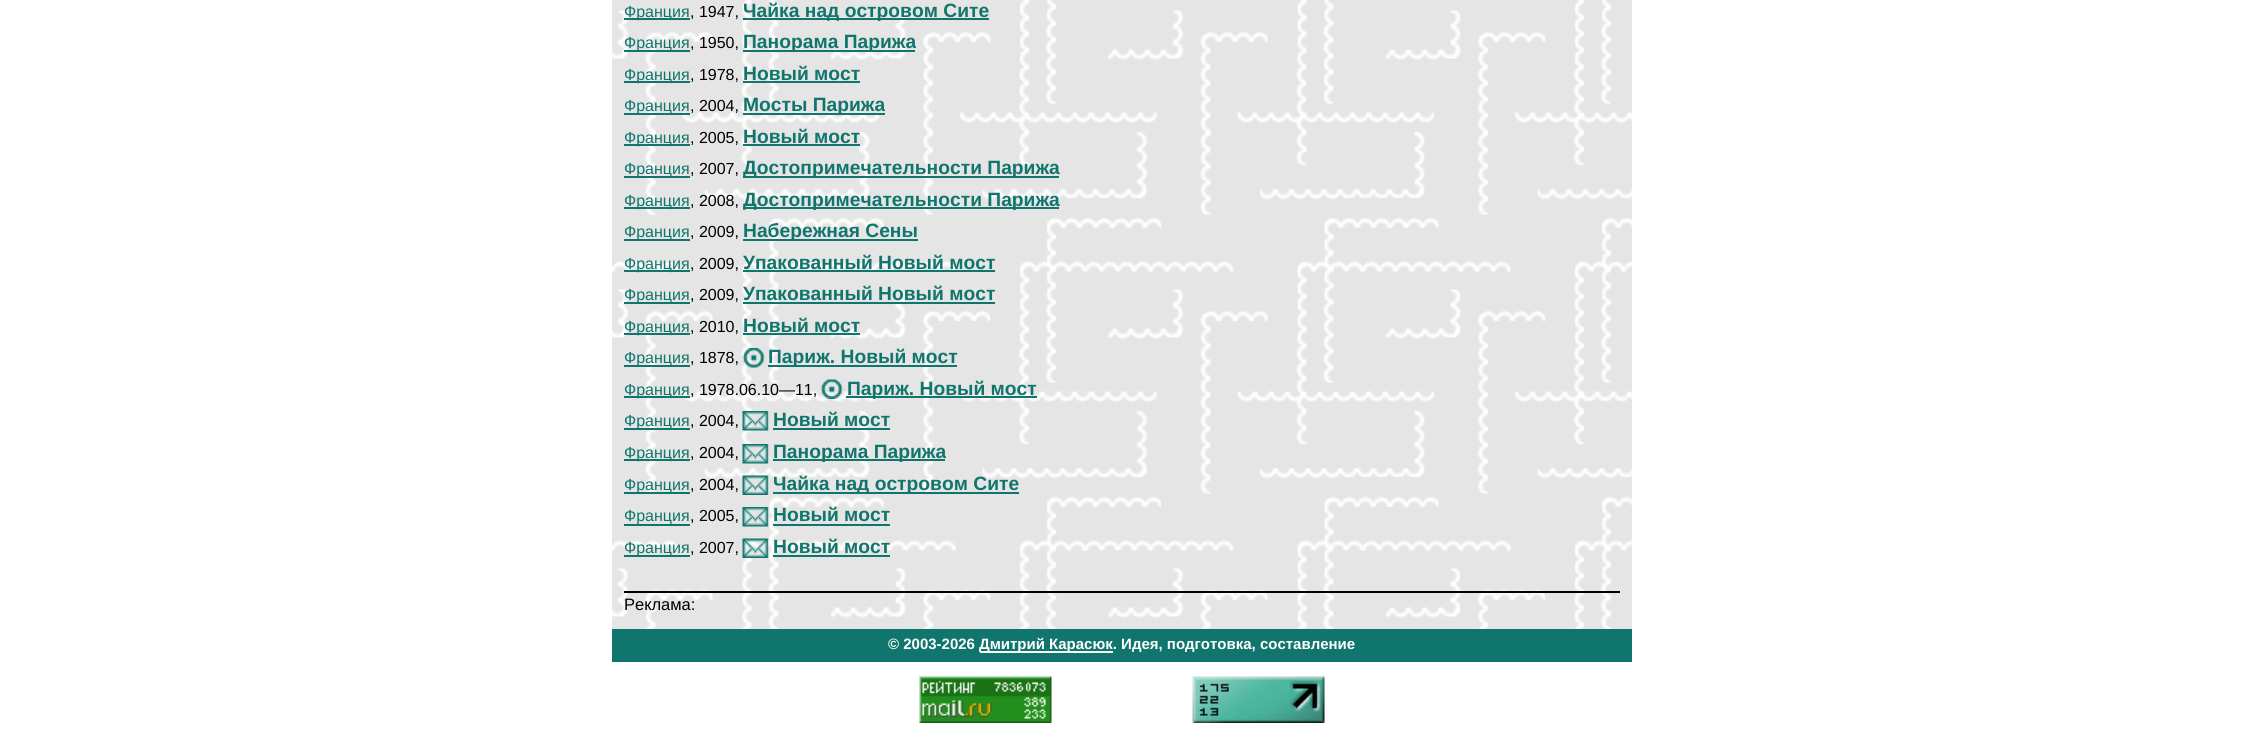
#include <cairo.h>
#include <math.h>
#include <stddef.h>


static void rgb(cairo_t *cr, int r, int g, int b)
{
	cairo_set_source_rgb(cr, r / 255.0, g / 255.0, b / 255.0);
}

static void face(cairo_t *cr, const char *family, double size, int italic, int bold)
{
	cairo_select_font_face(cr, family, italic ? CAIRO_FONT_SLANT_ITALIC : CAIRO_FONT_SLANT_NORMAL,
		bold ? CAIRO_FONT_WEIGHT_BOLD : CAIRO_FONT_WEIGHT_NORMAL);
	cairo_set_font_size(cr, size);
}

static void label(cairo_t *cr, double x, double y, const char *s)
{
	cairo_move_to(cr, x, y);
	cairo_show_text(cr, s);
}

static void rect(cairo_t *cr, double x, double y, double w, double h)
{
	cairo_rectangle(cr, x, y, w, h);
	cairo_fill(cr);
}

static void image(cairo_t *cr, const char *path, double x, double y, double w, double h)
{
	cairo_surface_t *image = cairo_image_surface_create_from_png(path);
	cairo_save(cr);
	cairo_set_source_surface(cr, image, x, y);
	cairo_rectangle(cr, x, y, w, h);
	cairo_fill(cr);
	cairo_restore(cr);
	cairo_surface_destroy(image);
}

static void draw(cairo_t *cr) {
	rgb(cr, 255, 255, 255);
	cairo_paint(cr);
	image(cr, "image0.png", 612, 0, 1020, 629);
	rgb(cr, 16, 117, 108);
	rect(cr, 624, 18, 66, 2);
	face(cr, "Liberation Sans", 16, 0, 0);
	label(cr, 624, 17, "Франция");
	rgb(cr, 0, 0, 0);
	label(cr, 690, 17, ", 1947,");
	rgb(cr, 16, 117, 108);
	rect(cr, 743, 18, 246, 2);
	face(cr, "Liberation Sans", 19.25, 0, 1);
	label(cr, 743, 17, "Чайка над островом Сите");
	rect(cr, 624, 50, 66, 2);
	face(cr, "Liberation Sans", 16, 0, 0);
	label(cr, 624, 48, "Франция");
	rgb(cr, 0, 0, 0);
	label(cr, 690, 48, ", 1950,");
	rgb(cr, 16, 117, 108);
	rect(cr, 743, 50, 172, 2);
	face(cr, "Liberation Sans", 19.25, 0, 1);
	label(cr, 743, 48, "Панорама Парижа");
	rect(cr, 624, 81, 66, 2);
	face(cr, "Liberation Sans", 16, 0, 0);
	label(cr, 624, 80, "Франция");
	rgb(cr, 0, 0, 0);
	label(cr, 690, 80, ", 1978,");
	face(cr, "Liberation Sans", 19.25, 0, 1);
	rgb(cr, 16, 117, 108);
	label(cr, 743, 80, "Новый мост");
	rect(cr, 743, 81, 117, 2);
	rect(cr, 624, 113, 66, 2);
	face(cr, "Liberation Sans", 16, 0, 0);
	label(cr, 624, 111, "Франция");
	rgb(cr, 0, 0, 0);
	label(cr, 690, 111, ", 2004,");
	rgb(cr, 16, 117, 108);
	rect(cr, 743, 113, 142, 2);
	face(cr, "Liberation Sans", 19.25, 0, 1);
	label(cr, 743, 111, "Мосты Парижа");
	rect(cr, 624, 144, 66, 2);
	face(cr, "Liberation Sans", 16, 0, 0);
	label(cr, 624, 143, "Франция");
	rgb(cr, 0, 0, 0);
	label(cr, 690, 143, ", 2005,");
	face(cr, "Liberation Sans", 19.25, 0, 1);
	rgb(cr, 16, 117, 108);
	label(cr, 743, 143, "Новый мост");
	rect(cr, 743, 144, 117, 2);
	rect(cr, 624, 176, 66, 2);
	face(cr, "Liberation Sans", 16, 0, 0);
	label(cr, 624, 174, "Франция");
	rgb(cr, 0, 0, 0);
	label(cr, 690, 174, ", 2007,");
	rgb(cr, 16, 117, 108);
	rect(cr, 743, 176, 316, 2);
	face(cr, "Liberation Sans", 19.25, 0, 1);
	label(cr, 743, 174, "Достопримечательности Парижа");
	rect(cr, 624, 207, 66, 2);
	face(cr, "Liberation Sans", 16, 0, 0);
	label(cr, 624, 206, "Франция");
	rgb(cr, 0, 0, 0);
	label(cr, 690, 206, ", 2008,");
	rgb(cr, 16, 117, 108);
	rect(cr, 743, 207, 316, 2);
	face(cr, "Liberation Sans", 19.25, 0, 1);
	label(cr, 743, 206, "Достопримечательности Парижа");
	rect(cr, 624, 239, 66, 2);
	face(cr, "Liberation Sans", 16, 0, 0);
	label(cr, 624, 237, "Франция");
	rgb(cr, 0, 0, 0);
	label(cr, 690, 237, ", 2009,");
	rgb(cr, 16, 117, 108);
	rect(cr, 743, 239, 175, 2);
	face(cr, "Liberation Sans", 19.25, 0, 1);
	label(cr, 743, 237, "Набережная Сены");
	rect(cr, 624, 270, 66, 2);
	face(cr, "Liberation Sans", 16, 0, 0);
	label(cr, 624, 269, "Франция");
	rgb(cr, 0, 0, 0);
	label(cr, 690, 269, ", 2009,");
	face(cr, "Liberation Sans", 19.25, 0, 1);
	rgb(cr, 16, 117, 108);
	label(cr, 743, 269, "Упакованный Новый мост");
	rect(cr, 743, 270, 252, 2);
	rect(cr, 624, 302, 66, 2);
	face(cr, "Liberation Sans", 16, 0, 0);
	label(cr, 624, 300, "Франция");
	rgb(cr, 0, 0, 0);
	label(cr, 690, 300, ", 2009,");
	face(cr, "Liberation Sans", 19.25, 0, 1);
	rgb(cr, 16, 117, 108);
	label(cr, 743, 300, "Упакованный Новый мост");
	rect(cr, 743, 302, 252, 2);
	rect(cr, 624, 333, 66, 2);
	face(cr, "Liberation Sans", 16, 0, 0);
	label(cr, 624, 332, "Франция");
	rgb(cr, 0, 0, 0);
	label(cr, 690, 332, ", 2010,");
	face(cr, "Liberation Sans", 19.25, 0, 1);
	rgb(cr, 16, 117, 108);
	label(cr, 743, 332, "Новый мост");
	rect(cr, 743, 333, 117, 2);
	rect(cr, 624, 365, 66, 2);
	face(cr, "Liberation Sans", 16, 0, 0);
	label(cr, 624, 363, "Франция");
	rgb(cr, 0, 0, 0);
	label(cr, 690, 363, ", 1878,");
	image(cr, "image1.png", 742, 348, 24, 20);
	rgb(cr, 16, 117, 108);
	rect(cr, 768, 365, 189, 2);
	face(cr, "Liberation Sans", 19.25, 0, 1);
	label(cr, 768, 363, "Париж. Новый мост");
	rect(cr, 624, 396, 66, 2);
	face(cr, "Liberation Sans", 16, 0, 0);
	label(cr, 624, 395, "Франция");
	rgb(cr, 0, 0, 0);
	label(cr, 690, 395, ", 1978.06.10—11,");
	image(cr, "image2.png", 820, 379, 24, 20);
	rgb(cr, 16, 117, 108);
	rect(cr, 846, 396, 191, 2);
	face(cr, "Liberation Sans", 19.25, 0, 1);
	label(cr, 847, 395, "Париж. Новый мост");
	rect(cr, 624, 428, 66, 2);
	face(cr, "Liberation Sans", 16, 0, 0);
	label(cr, 624, 426, "Франция");
	rgb(cr, 0, 0, 0);
	label(cr, 690, 426, ", 2004,");
	image(cr, "image3.png", 742, 411, 27, 20);
	face(cr, "Liberation Sans", 19.25, 0, 1);
	rgb(cr, 16, 117, 108);
	label(cr, 773, 426, "Новый мост");
	rect(cr, 773, 428, 117, 2);
	rect(cr, 624, 459, 66, 2);
	face(cr, "Liberation Sans", 16, 0, 0);
	label(cr, 624, 458, "Франция");
	rgb(cr, 0, 0, 0);
	label(cr, 690, 458, ", 2004,");
	image(cr, "image4.png", 742, 444, 27, 20);
	rgb(cr, 16, 117, 108);
	rect(cr, 773, 459, 172, 2);
	face(cr, "Liberation Sans", 19.25, 0, 1);
	label(cr, 773, 458, "Панорама Парижа");
	rect(cr, 624, 492, 66, 2);
	face(cr, "Liberation Sans", 16, 0, 0);
	label(cr, 624, 490, "Франция");
	rgb(cr, 0, 0, 0);
	label(cr, 690, 490, ", 2004,");
	image(cr, "image5.png", 742, 475, 27, 20);
	rgb(cr, 16, 117, 108);
	rect(cr, 773, 492, 246, 2);
	face(cr, "Liberation Sans", 19.25, 0, 1);
	label(cr, 773, 490, "Чайка над островом Сите");
	rect(cr, 624, 524, 66, 2);
	face(cr, "Liberation Sans", 16, 0, 0);
	label(cr, 624, 521, "Франция");
	rgb(cr, 0, 0, 0);
	label(cr, 690, 521, ", 2005,");
	image(cr, "image4.png", 742, 507, 27, 20);
	face(cr, "Liberation Sans", 19.25, 0, 1);
	rgb(cr, 16, 117, 108);
	label(cr, 773, 521, "Новый мост");
	rect(cr, 773, 524, 117, 2);
	rect(cr, 624, 555, 66, 2);
	face(cr, "Liberation Sans", 16, 0, 0);
	label(cr, 624, 553, "Франция");
	rgb(cr, 0, 0, 0);
	label(cr, 690, 553, ", 2007,");
	image(cr, "image6.png", 742, 538, 27, 20);
	face(cr, "Liberation Sans", 19.25, 0, 1);
	rgb(cr, 16, 117, 108);
	label(cr, 773, 553, "Новый мост");
	rect(cr, 773, 555, 117, 2);
	rgb(cr, 0, 0, 0);
	rect(cr, 624, 591, 996, 2);
	face(cr, "Liberation Sans", 16.5, 0, 0);
	label(cr, 624, 610, "Реклама:");
	rgb(cr, 16, 117, 108);
	rect(cr, 612, 629, 1020, 33);
	face(cr, "Liberation Sans", 15, 0, 1);
	rgb(cr, 255, 255, 255);
	label(cr, 888, 649, "© 2003-2026");
	rect(cr, 980, 651, 133, 2);
	label(cr, 979, 649, "Дмитрий Карасюк. Идея, подготовка, составление");
	image(cr, "image7.png", 919, 676, 133, 47);
	image(cr, "image8.png", 1192, 676, 133, 47);
}

int main(void) {
	cairo_surface_t *surface = cairo_image_surface_create(CAIRO_FORMAT_RGB24, 2243, 740);
	cairo_t *cr = cairo_create(surface);
	cairo_font_options_t *options = cairo_font_options_create();
	cairo_font_options_set_hint_metrics(options, CAIRO_HINT_METRICS_OFF);
	cairo_font_options_set_hint_style(options, CAIRO_HINT_STYLE_NONE);
	cairo_set_font_options(cr, options);
	cairo_set_miter_limit(cr, 4);
	draw(cr);
	cairo_surface_write_to_png(surface, "render.png");
	cairo_font_options_destroy(options);
	cairo_destroy(cr);
	cairo_surface_destroy(surface);
	return 0;
}
